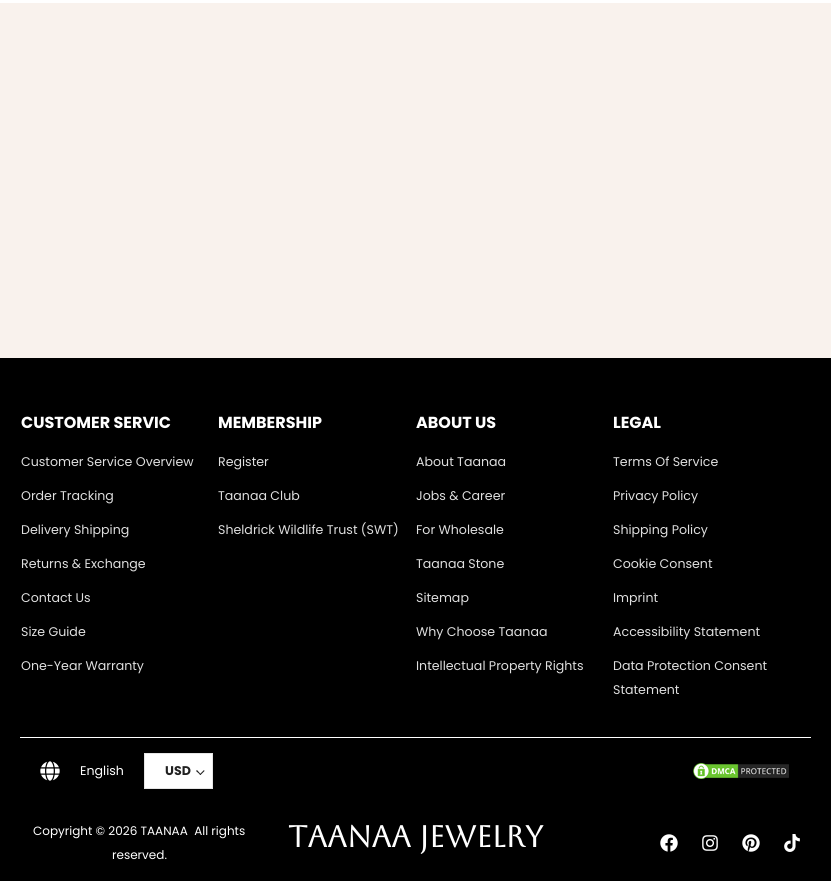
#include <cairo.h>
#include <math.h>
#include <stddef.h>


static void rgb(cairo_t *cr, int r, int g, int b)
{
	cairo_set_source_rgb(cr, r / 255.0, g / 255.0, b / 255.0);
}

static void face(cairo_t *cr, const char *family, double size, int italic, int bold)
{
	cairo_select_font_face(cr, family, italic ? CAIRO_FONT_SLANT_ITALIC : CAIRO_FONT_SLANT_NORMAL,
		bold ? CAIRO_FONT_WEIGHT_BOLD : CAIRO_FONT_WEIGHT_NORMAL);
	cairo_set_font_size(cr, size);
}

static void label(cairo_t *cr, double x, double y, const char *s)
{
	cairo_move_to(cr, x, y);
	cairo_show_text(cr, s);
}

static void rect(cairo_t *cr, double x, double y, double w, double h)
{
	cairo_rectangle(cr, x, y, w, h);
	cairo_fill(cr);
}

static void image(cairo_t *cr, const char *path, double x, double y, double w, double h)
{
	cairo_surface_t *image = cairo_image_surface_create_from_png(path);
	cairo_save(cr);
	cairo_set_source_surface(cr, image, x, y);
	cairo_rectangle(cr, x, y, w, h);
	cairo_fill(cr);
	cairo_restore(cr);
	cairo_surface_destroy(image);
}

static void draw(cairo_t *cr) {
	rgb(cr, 255, 255, 255);
	cairo_paint(cr);
	rgb(cr, 249, 242, 237);
	rect(cr, 0, 3, 831, 355);
	rgb(cr, 0, 0, 0);
	rect(cr, 0, 358, 831, 523);
	face(cr, "Poppins", 16, 0, 1);
	rgb(cr, 255, 255, 255);
	label(cr, 21, 428, "CUSTOMER SERVIC");
	face(cr, "Poppins", 12.6, 0, 0);
	rgb(cr, 223, 223, 223);
	label(cr, 21, 466, "Customer Service Overview");
	label(cr, 21, 500, "Order Tracking");
	label(cr, 21, 534, "Delivery Shipping");
	label(cr, 21, 568, "Returns & Exchange");
	label(cr, 21, 602, "Contact Us");
	label(cr, 21, 636, "Size Guide");
	label(cr, 21, 670, "One-Year Warranty");
	face(cr, "Poppins", 16, 0, 1);
	rgb(cr, 255, 255, 255);
	label(cr, 218, 428, "MEMBERSHIP");
	face(cr, "Poppins", 12.6, 0, 0);
	rgb(cr, 223, 223, 223);
	label(cr, 218, 466, "Register");
	label(cr, 218, 500, "Taanaa Club");
	label(cr, 218, 534, "Sheldrick Wildlife Trust (SWT)");
	face(cr, "Poppins", 16, 0, 1);
	rgb(cr, 255, 255, 255);
	label(cr, 416, 428, "ABOUT US");
	face(cr, "Poppins", 12.6, 0, 0);
	rgb(cr, 223, 223, 223);
	label(cr, 416, 466, "About Taanaa");
	label(cr, 416, 500, "Jobs & Career");
	label(cr, 416, 534, "For Wholesale");
	label(cr, 416, 568, "Taanaa Stone");
	label(cr, 416, 602, "Sitemap");
	label(cr, 416, 636, "Why Choose Taanaa");
	label(cr, 416, 670, "Intellectual Property Rights");
	face(cr, "Poppins", 16, 0, 1);
	rgb(cr, 255, 255, 255);
	label(cr, 613, 428, "LEGAL");
	face(cr, "Poppins", 12.6, 0, 0);
	rgb(cr, 223, 223, 223);
	label(cr, 613, 466, "Terms Of Service");
	label(cr, 613, 500, "Privacy Policy");
	label(cr, 613, 534, "Shipping Policy");
	label(cr, 613, 568, "Cookie Consent");
	label(cr, 613, 602, "Imprint");
	label(cr, 613, 636, "Accessibility Statement");
	label(cr, 613, 670, "Data Protection Consent");
	label(cr, 613, 694, "Statement");
	rgb(cr, 255, 255, 255);
	rect(cr, 20, 737, 791, 1);
	image(cr, "image0.png", 40, 761, 20, 20);
	label(cr, 80, 775, "English");
	cairo_rectangle(cr, 144.5, 753.5, 68, 35);
	cairo_fill_preserve(cr);
	rgb(cr, 229, 229, 229);
	cairo_set_line_width(cr, 1);
	cairo_stroke(cr);
	face(cr, "Poppins", 12.6, 0, 1);
	rgb(cr, 33, 33, 33);
	label(cr, 165, 775, "USD");
	cairo_new_path(cr);
	cairo_move_to(cr, 204, 770);
	cairo_line_to(cr, 204.5, 771);
	cairo_line_to(cr, 200.5, 775);
	cairo_line_to(cr, 199.5, 774.5);
	cairo_close_path(cr);
	cairo_fill(cr);
	cairo_new_path(cr);
	cairo_move_to(cr, 197, 770);
	cairo_line_to(cr, 201, 774.5);
	cairo_line_to(cr, 200.5, 775);
	cairo_line_to(cr, 196, 771);
	cairo_close_path(cr);
	cairo_fill(cr);
	image(cr, "image1.png", 693, 763, 96, 16);
	face(cr, "Poppins", 12, 0, 0);
	rgb(cr, 255, 255, 255);
	label(cr, 33, 835, "Copyright © 2026 TAANAA  All rights");
	label(cr, 112, 859, "reserved.");
	face(cr, "Aboreto", 30, 0, 1);
	label(cr, 288, 847, "TAANAA JEWELRY");
	image(cr, "image2.png", 660, 834, 18, 18);
	image(cr, "image3.png", 702, 835, 16, 16);
	image(cr, "image4.png", 742, 834, 18, 18);
	image(cr, "image5.png", 784, 834, 16, 18);
}

int main(void) {
	cairo_surface_t *surface = cairo_image_surface_create(CAIRO_FORMAT_RGB24, 831, 881);
	cairo_t *cr = cairo_create(surface);
	cairo_font_options_t *options = cairo_font_options_create();
	cairo_font_options_set_hint_metrics(options, CAIRO_HINT_METRICS_OFF);
	cairo_font_options_set_hint_style(options, CAIRO_HINT_STYLE_NONE);
	cairo_set_font_options(cr, options);
	cairo_set_miter_limit(cr, 4);
	draw(cr);
	cairo_surface_write_to_png(surface, "render.png");
	cairo_font_options_destroy(options);
	cairo_destroy(cr);
	cairo_surface_destroy(surface);
	return 0;
}
